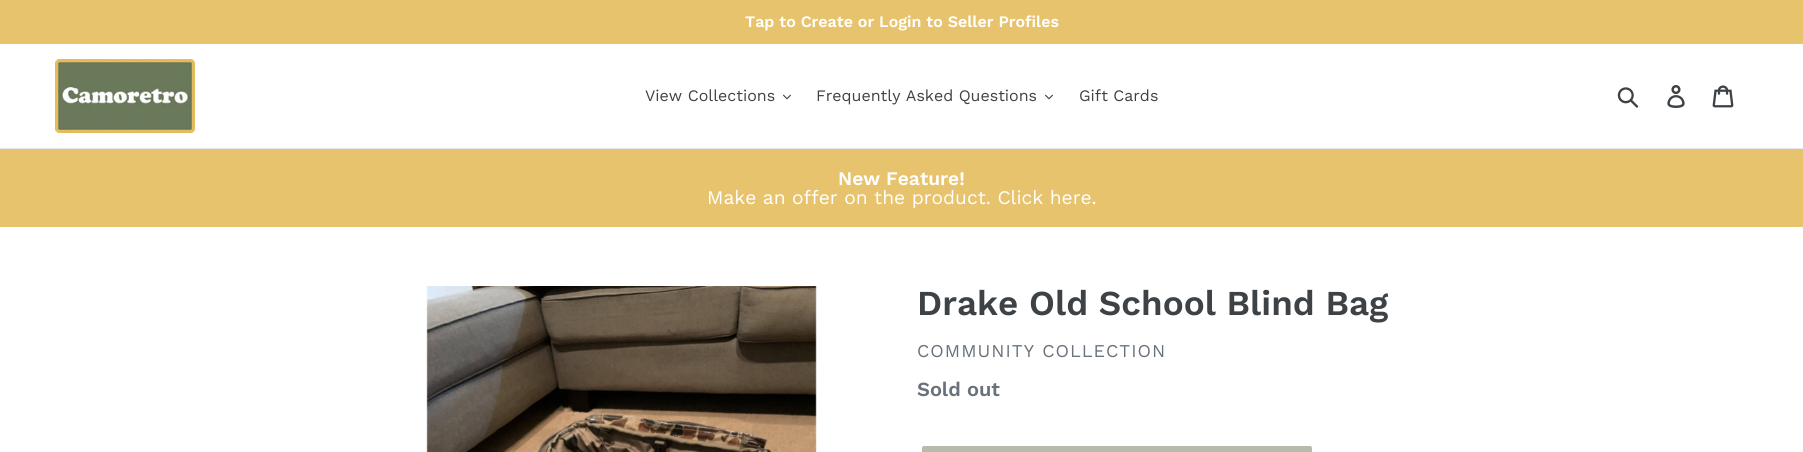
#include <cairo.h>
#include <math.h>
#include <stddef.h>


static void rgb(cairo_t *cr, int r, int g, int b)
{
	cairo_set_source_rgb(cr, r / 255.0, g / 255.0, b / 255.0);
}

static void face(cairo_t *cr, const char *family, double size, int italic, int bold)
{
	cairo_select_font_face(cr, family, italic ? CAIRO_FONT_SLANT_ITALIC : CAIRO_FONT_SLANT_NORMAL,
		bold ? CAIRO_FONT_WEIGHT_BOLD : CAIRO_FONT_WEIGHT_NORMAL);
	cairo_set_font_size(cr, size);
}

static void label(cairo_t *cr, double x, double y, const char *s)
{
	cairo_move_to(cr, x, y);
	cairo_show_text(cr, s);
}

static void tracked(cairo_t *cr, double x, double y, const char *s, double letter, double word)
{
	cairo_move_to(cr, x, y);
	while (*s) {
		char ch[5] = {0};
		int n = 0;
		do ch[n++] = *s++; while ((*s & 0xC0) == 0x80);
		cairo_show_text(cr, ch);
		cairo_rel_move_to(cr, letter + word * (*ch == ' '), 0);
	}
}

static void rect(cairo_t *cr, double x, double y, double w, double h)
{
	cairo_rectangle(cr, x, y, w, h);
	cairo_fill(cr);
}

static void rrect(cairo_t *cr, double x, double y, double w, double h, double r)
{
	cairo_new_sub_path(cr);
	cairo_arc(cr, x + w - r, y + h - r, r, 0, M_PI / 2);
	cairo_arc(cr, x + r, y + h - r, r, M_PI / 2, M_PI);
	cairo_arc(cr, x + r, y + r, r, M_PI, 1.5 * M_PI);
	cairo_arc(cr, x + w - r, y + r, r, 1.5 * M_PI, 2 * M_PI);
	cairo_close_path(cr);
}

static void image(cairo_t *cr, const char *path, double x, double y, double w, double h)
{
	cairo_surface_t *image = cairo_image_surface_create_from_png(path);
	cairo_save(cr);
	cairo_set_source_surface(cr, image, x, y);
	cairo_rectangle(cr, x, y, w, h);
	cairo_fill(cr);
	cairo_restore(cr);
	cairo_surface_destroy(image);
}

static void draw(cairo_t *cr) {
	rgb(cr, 255, 255, 255);
	cairo_paint(cr);
	rgb(cr, 232, 195, 110);
	rect(cr, 0, 0, 1803, 44);
	face(cr, "Work Sans SemiBold", 16, 0, 0);
	rgb(cr, 255, 255, 255);
	label(cr, 745, 27, "Tap to Create or Login to Seller Profiles");
	rgb(cr, 232, 233, 235);
	rect(cr, 0, 148, 1803, 1);
	image(cr, "image0.png", 55, 59, 140, 74);
	face(cr, "Work Sans", 16, 0, 0);
	rgb(cr, 61, 66, 70);
	label(cr, 645, 101, "View Collections");
	image(cr, "image1.png", 783, 94, 8, 6);
	label(cr, 816, 101, "Frequently Asked Questions");
	image(cr, "image1.png", 1045, 94, 8, 6);
	label(cr, 1079, 101, "Gift Cards");
	image(cr, "image2.png", 1617, 87, 22, 21);
	image(cr, "image3.png", 1667, 85, 18, 23);
	image(cr, "image4.png", 1712, 85, 22, 23);
	rgb(cr, 232, 195, 110);
	rect(cr, 0, 149, 1803, 78);
	face(cr, "Work Sans SemiBold", 19.2, 0, 0);
	rgb(cr, 255, 255, 255);
	label(cr, 838, 185, "New Feature!");
	face(cr, "Work Sans", 19.2, 0, 0);
	label(cr, 707, 204, "Make an offer on the product. Click here.");
	image(cr, "image5.png", 426, 286, 391, 166);
	face(cr, "Work Sans SemiBold", 35, 0, 0);
	rgb(cr, 61, 66, 70);
	label(cr, 917, 315, "Drake Old School Blind Bag");
	face(cr, "Work Sans", 18, 0, 0);
	rgb(cr, 105, 114, 123);
	tracked(cr, 917, 357, "COMMUNITY COLLECTION", 1, 0);
	face(cr, "Work Sans SemiBold", 20, 0, 0);
	label(cr, 917, 396, "Sold out");
	rgb(cr, 181, 188, 173);
	rrect(cr, 922, 446, 390, 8, 2);
	cairo_fill(cr);
}

int main(void) {
	cairo_surface_t *surface = cairo_image_surface_create(CAIRO_FORMAT_RGB24, 1803, 452);
	cairo_t *cr = cairo_create(surface);
	cairo_font_options_t *options = cairo_font_options_create();
	cairo_font_options_set_hint_metrics(options, CAIRO_HINT_METRICS_OFF);
	cairo_font_options_set_hint_style(options, CAIRO_HINT_STYLE_NONE);
	cairo_set_font_options(cr, options);
	cairo_set_miter_limit(cr, 4);
	draw(cr);
	cairo_surface_write_to_png(surface, "render.png");
	cairo_font_options_destroy(options);
	cairo_destroy(cr);
	cairo_surface_destroy(surface);
	return 0;
}
